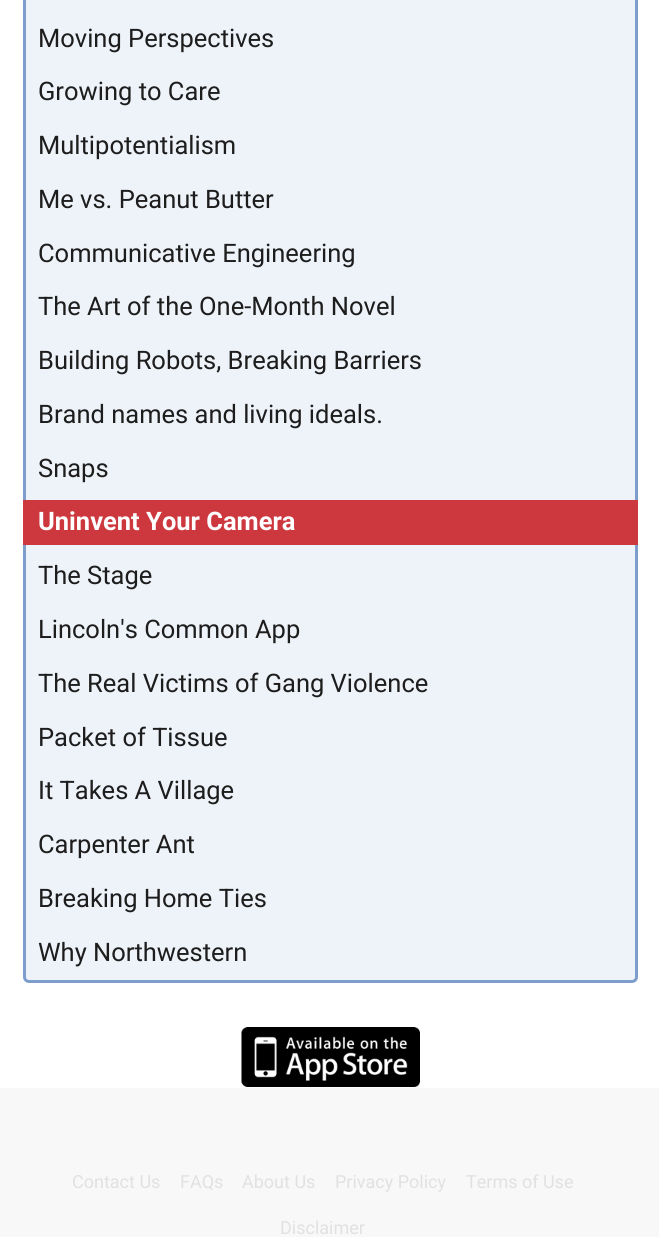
#include <cairo.h>
#include <math.h>
#include <stddef.h>


static void rgb(cairo_t *cr, int r, int g, int b)
{
	cairo_set_source_rgb(cr, r / 255.0, g / 255.0, b / 255.0);
}

static void face(cairo_t *cr, const char *family, double size, int italic, int bold)
{
	cairo_select_font_face(cr, family, italic ? CAIRO_FONT_SLANT_ITALIC : CAIRO_FONT_SLANT_NORMAL,
		bold ? CAIRO_FONT_WEIGHT_BOLD : CAIRO_FONT_WEIGHT_NORMAL);
	cairo_set_font_size(cr, size);
}

static void label(cairo_t *cr, double x, double y, const char *s)
{
	cairo_move_to(cr, x, y);
	cairo_show_text(cr, s);
}

static void rect(cairo_t *cr, double x, double y, double w, double h)
{
	cairo_rectangle(cr, x, y, w, h);
	cairo_fill(cr);
}

static void rrect(cairo_t *cr, double x, double y, double w, double h, double r)
{
	cairo_new_sub_path(cr);
	cairo_arc(cr, x + w - r, y + h - r, r, 0, M_PI / 2);
	cairo_arc(cr, x + r, y + h - r, r, M_PI / 2, M_PI);
	cairo_arc(cr, x + r, y + r, r, M_PI, 1.5 * M_PI);
	cairo_arc(cr, x + w - r, y + r, r, 1.5 * M_PI, 2 * M_PI);
	cairo_close_path(cr);
}

static void image(cairo_t *cr, const char *path, double x, double y, double w, double h)
{
	cairo_surface_t *image = cairo_image_surface_create_from_png(path);
	cairo_save(cr);
	cairo_set_source_surface(cr, image, x, y);
	cairo_rectangle(cr, x, y, w, h);
	cairo_fill(cr);
	cairo_restore(cr);
	cairo_surface_destroy(image);
}

static void draw(cairo_t *cr) {
	rgb(cr, 255, 255, 255);
	cairo_paint(cr);
	rgb(cr, 248, 248, 248);
	rect(cr, 0, 1088, 659, 149);
	rgb(cr, 237, 243, 249);
	rrect(cr, 24.5, -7.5, 612, 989, 4.5);
	cairo_fill_preserve(cr);
	rgb(cr, 125, 158, 205);
	cairo_set_line_width(cr, 3);
	cairo_stroke(cr);
	face(cr, "Roboto", 25.5, 0, 0);
	rgb(cr, 30, 29, 29);
	label(cr, 38, 47, "Moving Perspectives");
	label(cr, 38, 100, "Growing to Care");
	label(cr, 38, 154, "Multipotentialism");
	label(cr, 38, 208, "Me vs. Peanut Butter");
	label(cr, 38, 262, "Communicative Engineering");
	label(cr, 38, 315, "The Art of the One-Month Novel");
	label(cr, 38, 369, "Building Robots, Breaking Barriers");
	label(cr, 38, 423, "Brand names and living ideals.");
	label(cr, 38, 477, "Snaps");
	rgb(cr, 205, 56, 63);
	rect(cr, 23, 500, 615, 45);
	face(cr, "Roboto", 25.5, 0, 1);
	rgb(cr, 255, 255, 255);
	label(cr, 38, 530, "Uninvent Your Camera");
	face(cr, "Roboto", 25.5, 0, 0);
	rgb(cr, 30, 29, 29);
	label(cr, 38, 584, "The Stage");
	label(cr, 38, 638, "Lincoln's Common App");
	label(cr, 38, 692, "The Real Victims of Gang Violence");
	label(cr, 38, 746, "Packet of Tissue");
	label(cr, 38, 799, "It Takes A Village");
	label(cr, 38, 853, "Carpenter Ant");
	label(cr, 38, 907, "Breaking Home Ties");
	label(cr, 38, 961, "Why Northwestern");
	image(cr, "image0.png", 241, 1027, 179, 60);
	face(cr, "Roboto", 18, 0, 0);
	rgb(cr, 225, 225, 225);
	label(cr, 72, 1188, "Contact Us");
	label(cr, 180, 1188, "FAQs");
	label(cr, 242, 1188, "About Us");
	label(cr, 335, 1188, "Privacy Policy");
	label(cr, 466, 1188, "Terms of Use");
	label(cr, 280, 1234, "Disclaimer");
}

int main(void) {
	cairo_surface_t *surface = cairo_image_surface_create(CAIRO_FORMAT_RGB24, 659, 1237);
	cairo_t *cr = cairo_create(surface);
	cairo_font_options_t *options = cairo_font_options_create();
	cairo_font_options_set_hint_metrics(options, CAIRO_HINT_METRICS_OFF);
	cairo_font_options_set_hint_style(options, CAIRO_HINT_STYLE_NONE);
	cairo_set_font_options(cr, options);
	cairo_set_miter_limit(cr, 4);
	draw(cr);
	cairo_surface_write_to_png(surface, "render.png");
	cairo_font_options_destroy(options);
	cairo_destroy(cr);
	cairo_surface_destroy(surface);
	return 0;
}
